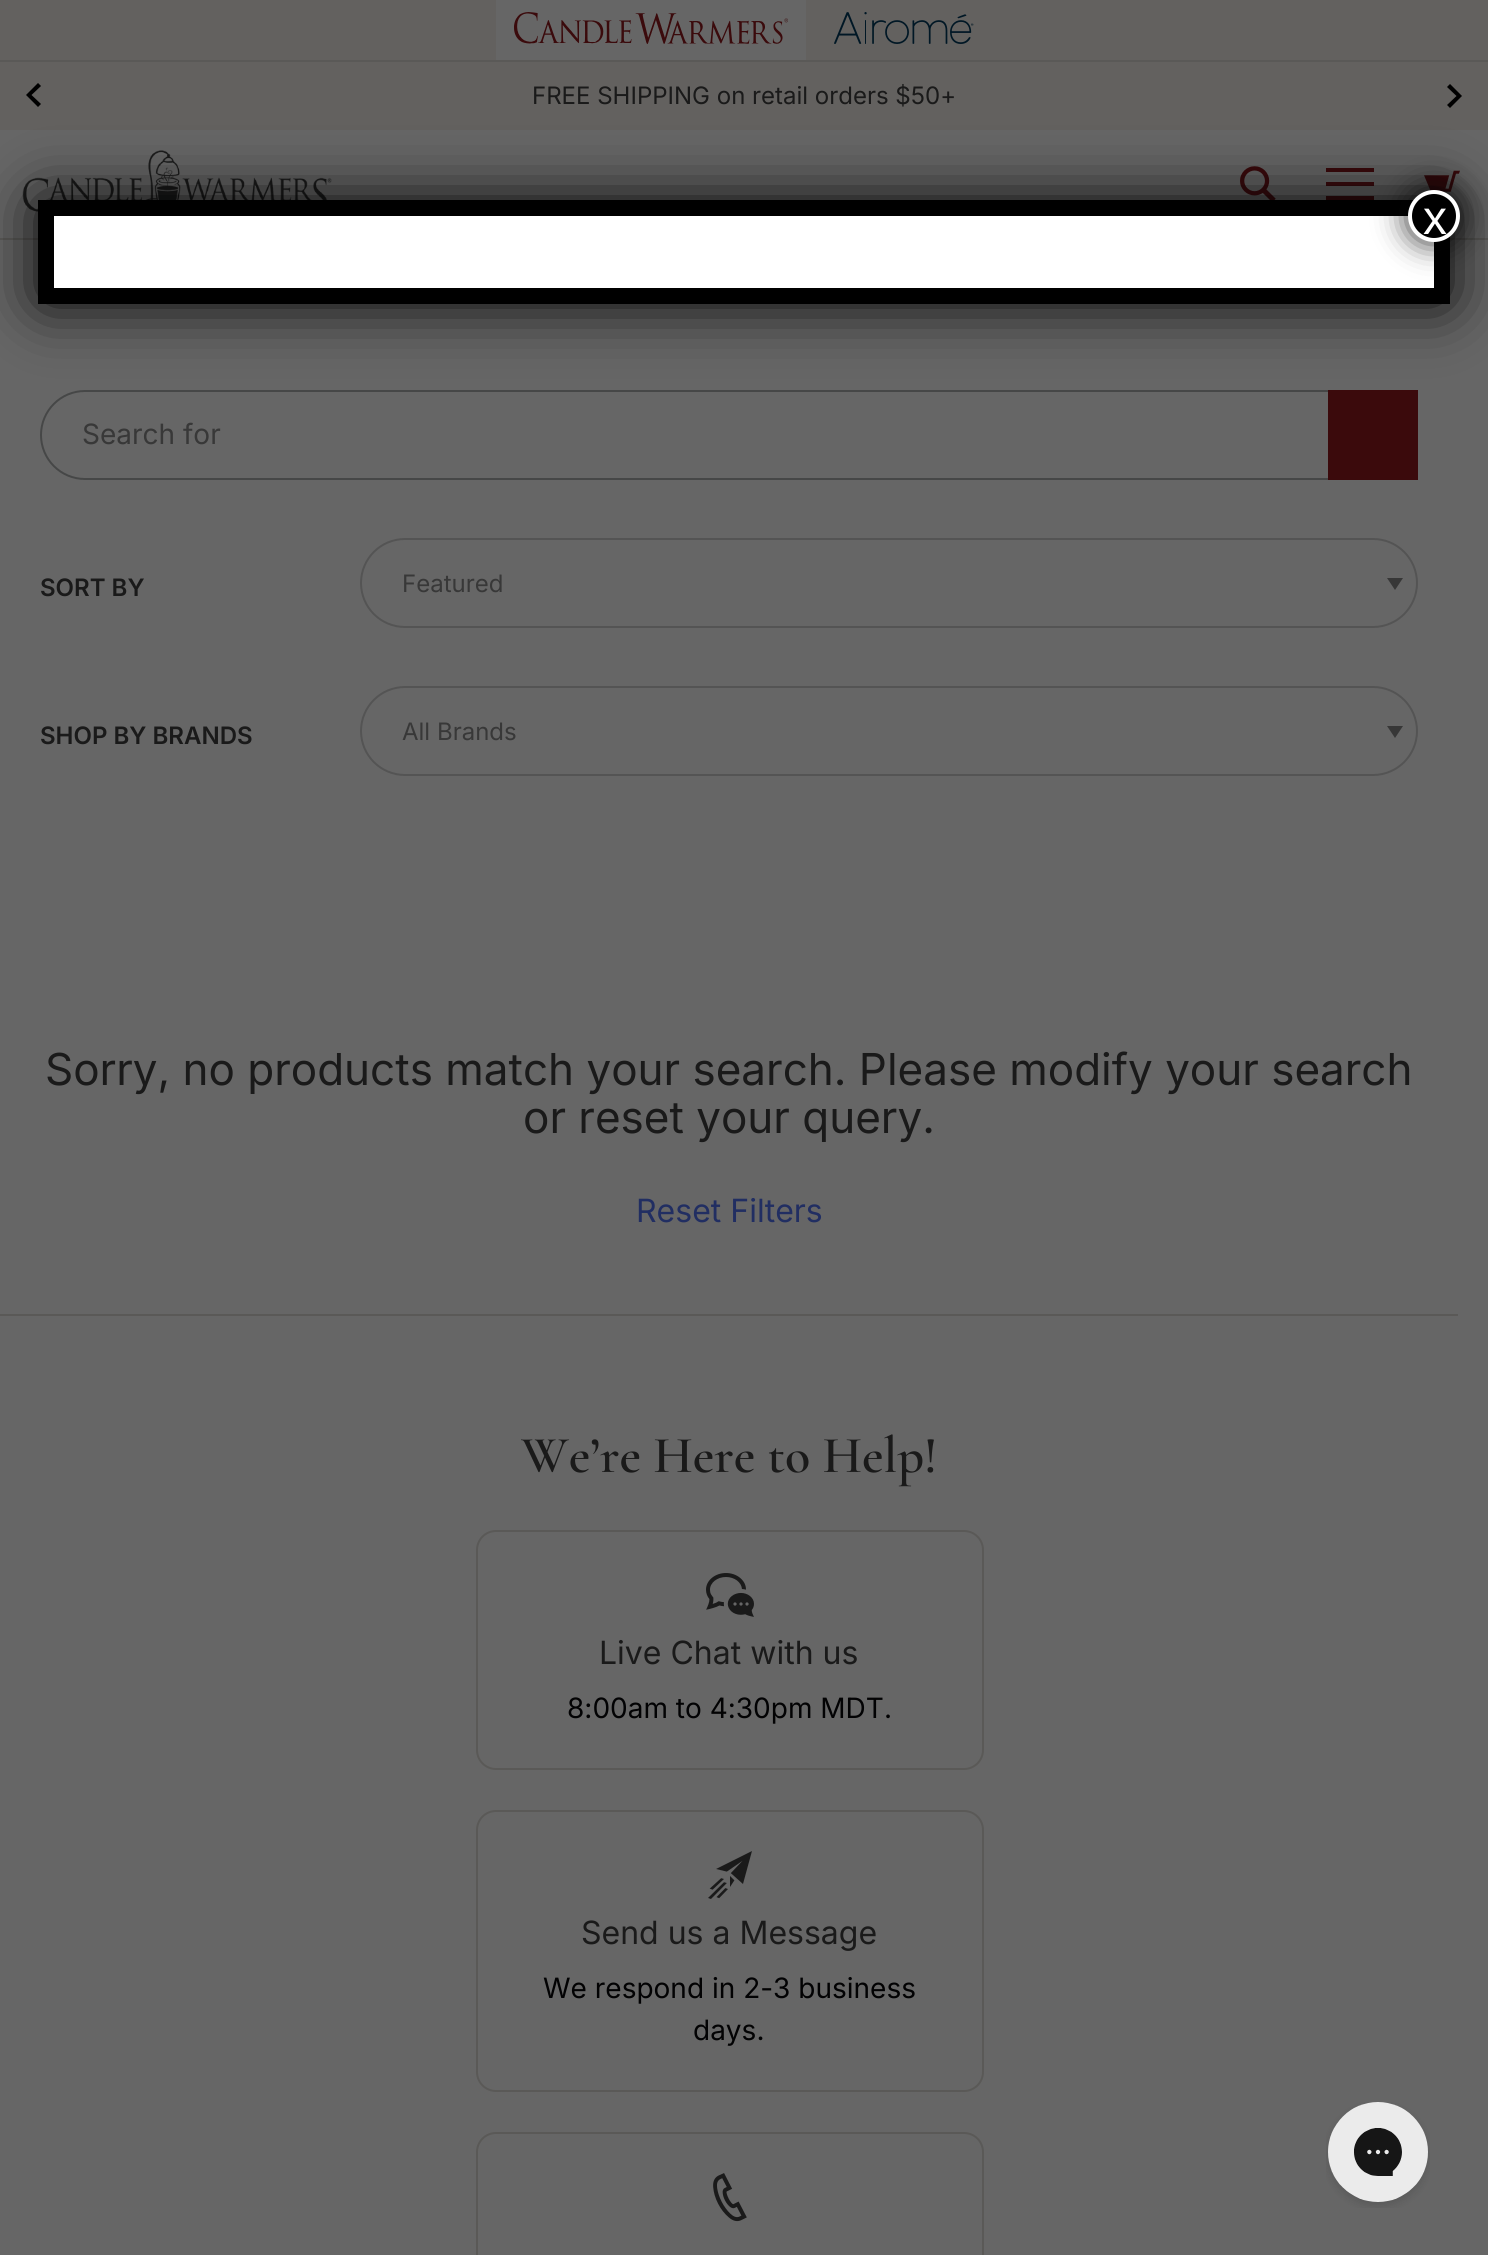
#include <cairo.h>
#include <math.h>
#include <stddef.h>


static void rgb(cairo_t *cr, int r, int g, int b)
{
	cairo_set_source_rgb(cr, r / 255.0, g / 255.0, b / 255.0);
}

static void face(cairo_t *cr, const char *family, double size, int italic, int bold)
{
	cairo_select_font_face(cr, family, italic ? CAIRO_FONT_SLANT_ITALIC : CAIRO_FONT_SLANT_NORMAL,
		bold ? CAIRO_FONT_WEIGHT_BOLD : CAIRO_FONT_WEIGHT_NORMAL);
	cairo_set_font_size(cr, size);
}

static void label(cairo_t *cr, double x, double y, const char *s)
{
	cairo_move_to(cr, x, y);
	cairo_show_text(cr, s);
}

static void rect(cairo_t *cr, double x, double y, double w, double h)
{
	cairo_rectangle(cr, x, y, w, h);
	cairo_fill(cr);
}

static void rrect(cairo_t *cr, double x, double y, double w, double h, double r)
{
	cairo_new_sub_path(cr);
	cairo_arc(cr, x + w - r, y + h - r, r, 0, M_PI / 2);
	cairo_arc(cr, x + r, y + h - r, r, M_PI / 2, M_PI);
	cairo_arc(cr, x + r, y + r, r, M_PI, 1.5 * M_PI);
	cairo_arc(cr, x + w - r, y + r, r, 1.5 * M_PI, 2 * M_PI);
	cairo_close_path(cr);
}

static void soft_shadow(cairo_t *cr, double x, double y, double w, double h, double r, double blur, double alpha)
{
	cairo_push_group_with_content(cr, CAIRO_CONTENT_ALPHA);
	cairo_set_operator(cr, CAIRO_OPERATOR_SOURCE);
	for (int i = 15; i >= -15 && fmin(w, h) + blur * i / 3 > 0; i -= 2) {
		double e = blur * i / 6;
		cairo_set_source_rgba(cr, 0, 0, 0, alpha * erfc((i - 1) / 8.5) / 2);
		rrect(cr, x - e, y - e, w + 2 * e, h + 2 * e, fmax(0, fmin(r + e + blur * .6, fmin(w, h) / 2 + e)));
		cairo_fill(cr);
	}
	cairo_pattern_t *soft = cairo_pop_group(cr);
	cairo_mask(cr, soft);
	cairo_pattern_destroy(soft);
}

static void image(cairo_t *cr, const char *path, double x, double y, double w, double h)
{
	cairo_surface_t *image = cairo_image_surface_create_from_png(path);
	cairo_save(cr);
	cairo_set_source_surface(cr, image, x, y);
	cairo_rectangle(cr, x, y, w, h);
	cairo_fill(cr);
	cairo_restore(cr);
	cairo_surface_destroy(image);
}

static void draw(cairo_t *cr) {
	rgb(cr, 102, 102, 102);
	cairo_paint(cr);
	rgb(cr, 99, 97, 95);
	rect(cr, 0, 0, 1488, 130);
	rgb(cr, 102, 102, 102);
	rect(cr, 496, 0, 310, 60);
	image(cr, "image0.png", 514, 12, 274, 32);
	image(cr, "image1.png", 834, 12, 140, 32);
	rgb(cr, 90, 89, 87);
	rect(cr, 0, 60, 1488, 2);
	rgb(cr, 0, 0, 0);
	cairo_new_path(cr);
	cairo_move_to(cr, 41, 86);
	cairo_line_to(cr, 31.5, 95);
	cairo_line_to(cr, 41, 104);
	cairo_line_to(cr, 38, 107);
	cairo_line_to(cr, 26, 95);
	cairo_line_to(cr, 38, 83);
	cairo_close_path(cr);
	cairo_fill(cr);
	face(cr, "Inter", 24, 0, 0);
	rgb(cr, 26, 26, 26);
	label(cr, 532, 104, "FREE SHIPPING on retail orders $50+");
	rgb(cr, 0, 0, 0);
	cairo_new_path(cr);
	cairo_move_to(cr, 1450, 84);
	cairo_line_to(cr, 1462, 96);
	cairo_line_to(cr, 1450, 108);
	cairo_line_to(cr, 1447, 105);
	cairo_line_to(cr, 1456.5, 96);
	cairo_line_to(cr, 1447, 87);
	cairo_close_path(cr);
	cairo_fill(cr);
	rgb(cr, 90, 89, 87);
	rect(cr, 0, 238, 1488, 2);
	image(cr, "image2.png", 22, 150, 310, 62);
	image(cr, "image3.png", 1240, 166, 36, 34);
	rgb(cr, 59, 10, 12);
	rect(cr, 1326, 168, 48, 4);
	rect(cr, 1326, 182, 48, 4);
	rect(cr, 1326, 196, 48, 4);
	image(cr, "image4.png", 1424, 170, 36, 22);
	rrect(cr, 41, 391, 1376, 88, 44);
	rgb(cr, 70, 71, 71);
	cairo_stroke(cr);
	face(cr, "Inter", 28, 0, 0);
	rgb(cr, 56, 56, 56);
	label(cr, 82, 444, "Search for");
	rgb(cr, 59, 10, 12);
	rect(cr, 1328, 390, 90, 90);
	face(cr, "Inter SemiBold", 24, 0, 0);
	rgb(cr, 26, 26, 26);
	label(cr, 40, 596, "SORT BY");
	rgb(cr, 55, 55, 55);
	cairo_new_path(cr);
	cairo_move_to(cr, 1387, 578);
	cairo_line_to(cr, 1403, 578);
	cairo_line_to(cr, 1395, 590);
	cairo_close_path(cr);
	cairo_fill(cr);
	rrect(cr, 361, 539, 1056, 88, 44);
	rgb(cr, 84, 84, 84);
	cairo_stroke(cr);
	face(cr, "Inter", 24, 0, 0);
	rgb(cr, 56, 56, 56);
	label(cr, 402, 592, "Featured");
	face(cr, "Inter SemiBold", 24, 0, 0);
	rgb(cr, 26, 26, 26);
	label(cr, 40, 744, "SHOP BY BRANDS");
	rgb(cr, 55, 55, 55);
	cairo_new_path(cr);
	cairo_move_to(cr, 1387, 726);
	cairo_line_to(cr, 1403, 726);
	cairo_line_to(cr, 1395, 738);
	cairo_close_path(cr);
	cairo_fill(cr);
	rrect(cr, 361, 687, 1056, 88, 44);
	rgb(cr, 84, 84, 84);
	cairo_stroke(cr);
	face(cr, "Inter", 24, 0, 0);
	rgb(cr, 56, 56, 56);
	label(cr, 402, 740, "All Brands");
	face(cr, "Inter", 44, 0, 0);
	rgb(cr, 26, 26, 26);
	label(cr, 45, 1085, "Sorry, no products match your search. Please modify your search");
	label(cr, 523, 1133, "or reset your query.");
	face(cr, "Inter", 32, 0, 0);
	rgb(cr, 33, 46, 98);
	label(cr, 636, 1222, "Reset Filters");
	rgb(cr, 90, 89, 87);
	rect(cr, 0, 1314, 1458, 2);
	face(cr, "Cormorant Garamond SemiBold", 52, 0, 0);
	rgb(cr, 26, 26, 26);
	label(cr, 521, 1472, "We’re Here to Help!");
	rrect(cr, 477, 1531, 506, 238, 19);
	rgb(cr, 90, 89, 87);
	cairo_stroke(cr);
	image(cr, "image5.png", 706, 1573, 48, 44);
	face(cr, "Inter", 32, 0, 0);
	rgb(cr, 26, 26, 26);
	label(cr, 599, 1664, "Live Chat with us");
	face(cr, "Inter", 28, 0, 0);
	rgb(cr, 2, 2, 3);
	label(cr, 567, 1718, "8:00am to 4:30pm MDT.");
	rrect(cr, 477, 1811, 506, 280, 19);
	rgb(cr, 90, 89, 87);
	cairo_stroke(cr);
	image(cr, "image6.png", 708, 1851, 44, 48);
	face(cr, "Inter", 32, 0, 0);
	rgb(cr, 26, 26, 26);
	label(cr, 581, 1944, "Send us a Message");
	face(cr, "Inter", 28, 0, 0);
	rgb(cr, 2, 2, 3);
	label(cr, 543, 1998, "We respond in 2-3 business");
	label(cr, 693, 2040, "days.");
	rrect(cr, 477, 2133, 506, 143, 19);
	rgb(cr, 90, 89, 87);
	cairo_stroke(cr);
	image(cr, "image7.png", 713, 2173, 34, 49);
	rgb(cr, 2, 2, 2);
	soft_shadow(cr, 38, 200, 1412, 104, 6, 30, 1);
	rgb(cr, 255, 255, 255);
	rect(cr, 54, 216, 1380, 72);
	cairo_new_path(cr);
	cairo_move_to(cr, 46, 208);
	cairo_line_to(cr, 1442, 208);
	cairo_line_to(cr, 1442, 296);
	cairo_line_to(cr, 46, 296);
	cairo_close_path(cr);
	rgb(cr, 0, 0, 0);
	cairo_set_line_width(cr, 16);
	cairo_stroke(cr);
	rgb(cr, 2, 2, 2);
	soft_shadow(cr, 1406, 188, 56, 56, 28, 15, 0.75);
	rgb(cr, 0, 0, 0);
	cairo_arc(cr, 1434, 216, 24, 0, 2 * M_PI);
	cairo_fill_preserve(cr);
	rgb(cr, 255, 255, 255);
	cairo_set_line_width(cr, 4);
	cairo_stroke(cr);
	face(cr, "Liberation Sans", 48, 0, 0);
	label(cr, 1423, 234, "x");
	image(cr, "image8.png", 1326, 2102, 104, 106);
}

int main(void) {
	cairo_surface_t *surface = cairo_image_surface_create(CAIRO_FORMAT_RGB24, 1488, 2255);
	cairo_t *cr = cairo_create(surface);
	cairo_font_options_t *options = cairo_font_options_create();
	cairo_font_options_set_hint_metrics(options, CAIRO_HINT_METRICS_OFF);
	cairo_font_options_set_hint_style(options, CAIRO_HINT_STYLE_NONE);
	cairo_set_font_options(cr, options);
	cairo_set_miter_limit(cr, 4);
	draw(cr);
	cairo_surface_write_to_png(surface, "render.png");
	cairo_font_options_destroy(options);
	cairo_destroy(cr);
	cairo_surface_destroy(surface);
	return 0;
}
